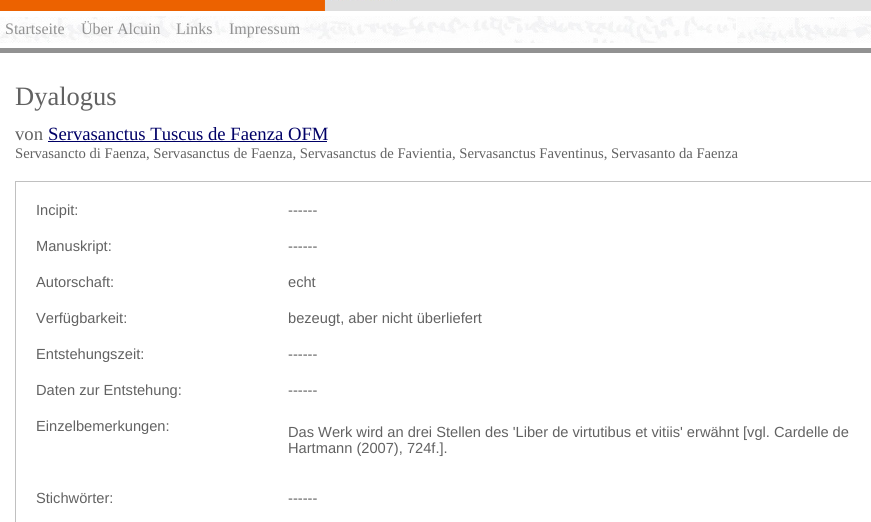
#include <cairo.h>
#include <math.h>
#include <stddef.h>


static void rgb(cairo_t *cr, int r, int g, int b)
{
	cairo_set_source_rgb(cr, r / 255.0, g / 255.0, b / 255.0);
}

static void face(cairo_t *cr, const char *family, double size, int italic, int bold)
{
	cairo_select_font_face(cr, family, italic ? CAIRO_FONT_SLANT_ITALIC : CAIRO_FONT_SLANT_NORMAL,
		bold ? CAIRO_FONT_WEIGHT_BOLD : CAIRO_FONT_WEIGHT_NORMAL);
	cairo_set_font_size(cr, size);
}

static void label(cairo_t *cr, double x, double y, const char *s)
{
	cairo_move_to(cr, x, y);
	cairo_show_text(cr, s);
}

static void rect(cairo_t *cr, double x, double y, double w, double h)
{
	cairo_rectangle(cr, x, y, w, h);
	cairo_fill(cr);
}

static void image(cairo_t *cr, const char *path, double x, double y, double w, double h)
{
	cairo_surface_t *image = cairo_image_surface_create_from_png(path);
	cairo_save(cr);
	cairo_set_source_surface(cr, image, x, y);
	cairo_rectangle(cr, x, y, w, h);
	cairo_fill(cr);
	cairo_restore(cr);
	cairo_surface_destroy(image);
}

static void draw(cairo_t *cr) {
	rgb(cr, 255, 255, 255);
	cairo_paint(cr);
	image(cr, "image0.png", 0, 0, 871, 11);
	image(cr, "image1.png", 0, 16, 871, 27);
	face(cr, "Liberation Serif", 16, 0, 0);
	rgb(cr, 146, 146, 146);
	label(cr, 5, 34, "Startseite");
	label(cr, 81, 34, "Über Alcuin");
	label(cr, 176, 34, "Links");
	label(cr, 229, 34, "Impressum");
	rect(cr, 0, 48, 871, 5);
	face(cr, "Liberation Serif", 26.5, 0, 0);
	rgb(cr, 98, 98, 98);
	label(cr, 15, 105, "Dyalogus");
	face(cr, "Liberation Serif", 18.7, 0, 0);
	label(cr, 15, 140, "von");
	rgb(cr, 0, 0, 102);
	label(cr, 48, 140, "Servasanctus Tuscus de Faenza OFM");
	rect(cr, 48, 141, 279, 1);
	face(cr, "Liberation Serif", 14.65, 0, 0);
	rgb(cr, 98, 98, 98);
	label(cr, 15, 158, "Servasancto di Faenza, Servasanctus de Faenza, Servasanctus de Favientia, Servasanctus Faventinus, Servasanto da Faenza");
	cairo_rectangle(cr, 15.5, 181.5, 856, 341);
	rgb(cr, 192, 192, 192);
	cairo_set_line_width(cr, 1);
	cairo_stroke(cr);
	face(cr, "Liberation Sans", 14.65, 0, 0);
	rgb(cr, 98, 98, 98);
	label(cr, 36, 215, "Incipit:");
	label(cr, 288, 215, "------");
	label(cr, 36, 251, "Manuskript:");
	label(cr, 288, 251, "------");
	label(cr, 36, 287, "Autorschaft:");
	label(cr, 288, 287, "echt");
	label(cr, 36, 323, "Verfügbarkeit:");
	label(cr, 288, 323, "bezeugt, aber nicht überliefert");
	label(cr, 36, 359, "Entstehungszeit:");
	label(cr, 288, 359, "------");
	label(cr, 36, 395, "Daten zur Entstehung:");
	label(cr, 288, 395, "------");
	label(cr, 36, 431, "Einzelbemerkungen:");
	label(cr, 288, 437, "Das Werk wird an drei Stellen des 'Liber de virtutibus et vitiis' erwähnt [vgl. Cardelle de");
	label(cr, 288, 453, "Hartmann (2007), 724f.].");
	label(cr, 36, 503, "Stichwörter:");
	label(cr, 288, 503, "------");
}

int main(void) {
	cairo_surface_t *surface = cairo_image_surface_create(CAIRO_FORMAT_RGB24, 871, 522);
	cairo_t *cr = cairo_create(surface);
	cairo_font_options_t *options = cairo_font_options_create();
	cairo_font_options_set_hint_metrics(options, CAIRO_HINT_METRICS_OFF);
	cairo_font_options_set_hint_style(options, CAIRO_HINT_STYLE_NONE);
	cairo_set_font_options(cr, options);
	cairo_set_miter_limit(cr, 4);
	draw(cr);
	cairo_surface_write_to_png(surface, "render.png");
	cairo_font_options_destroy(options);
	cairo_destroy(cr);
	cairo_surface_destroy(surface);
	return 0;
}
